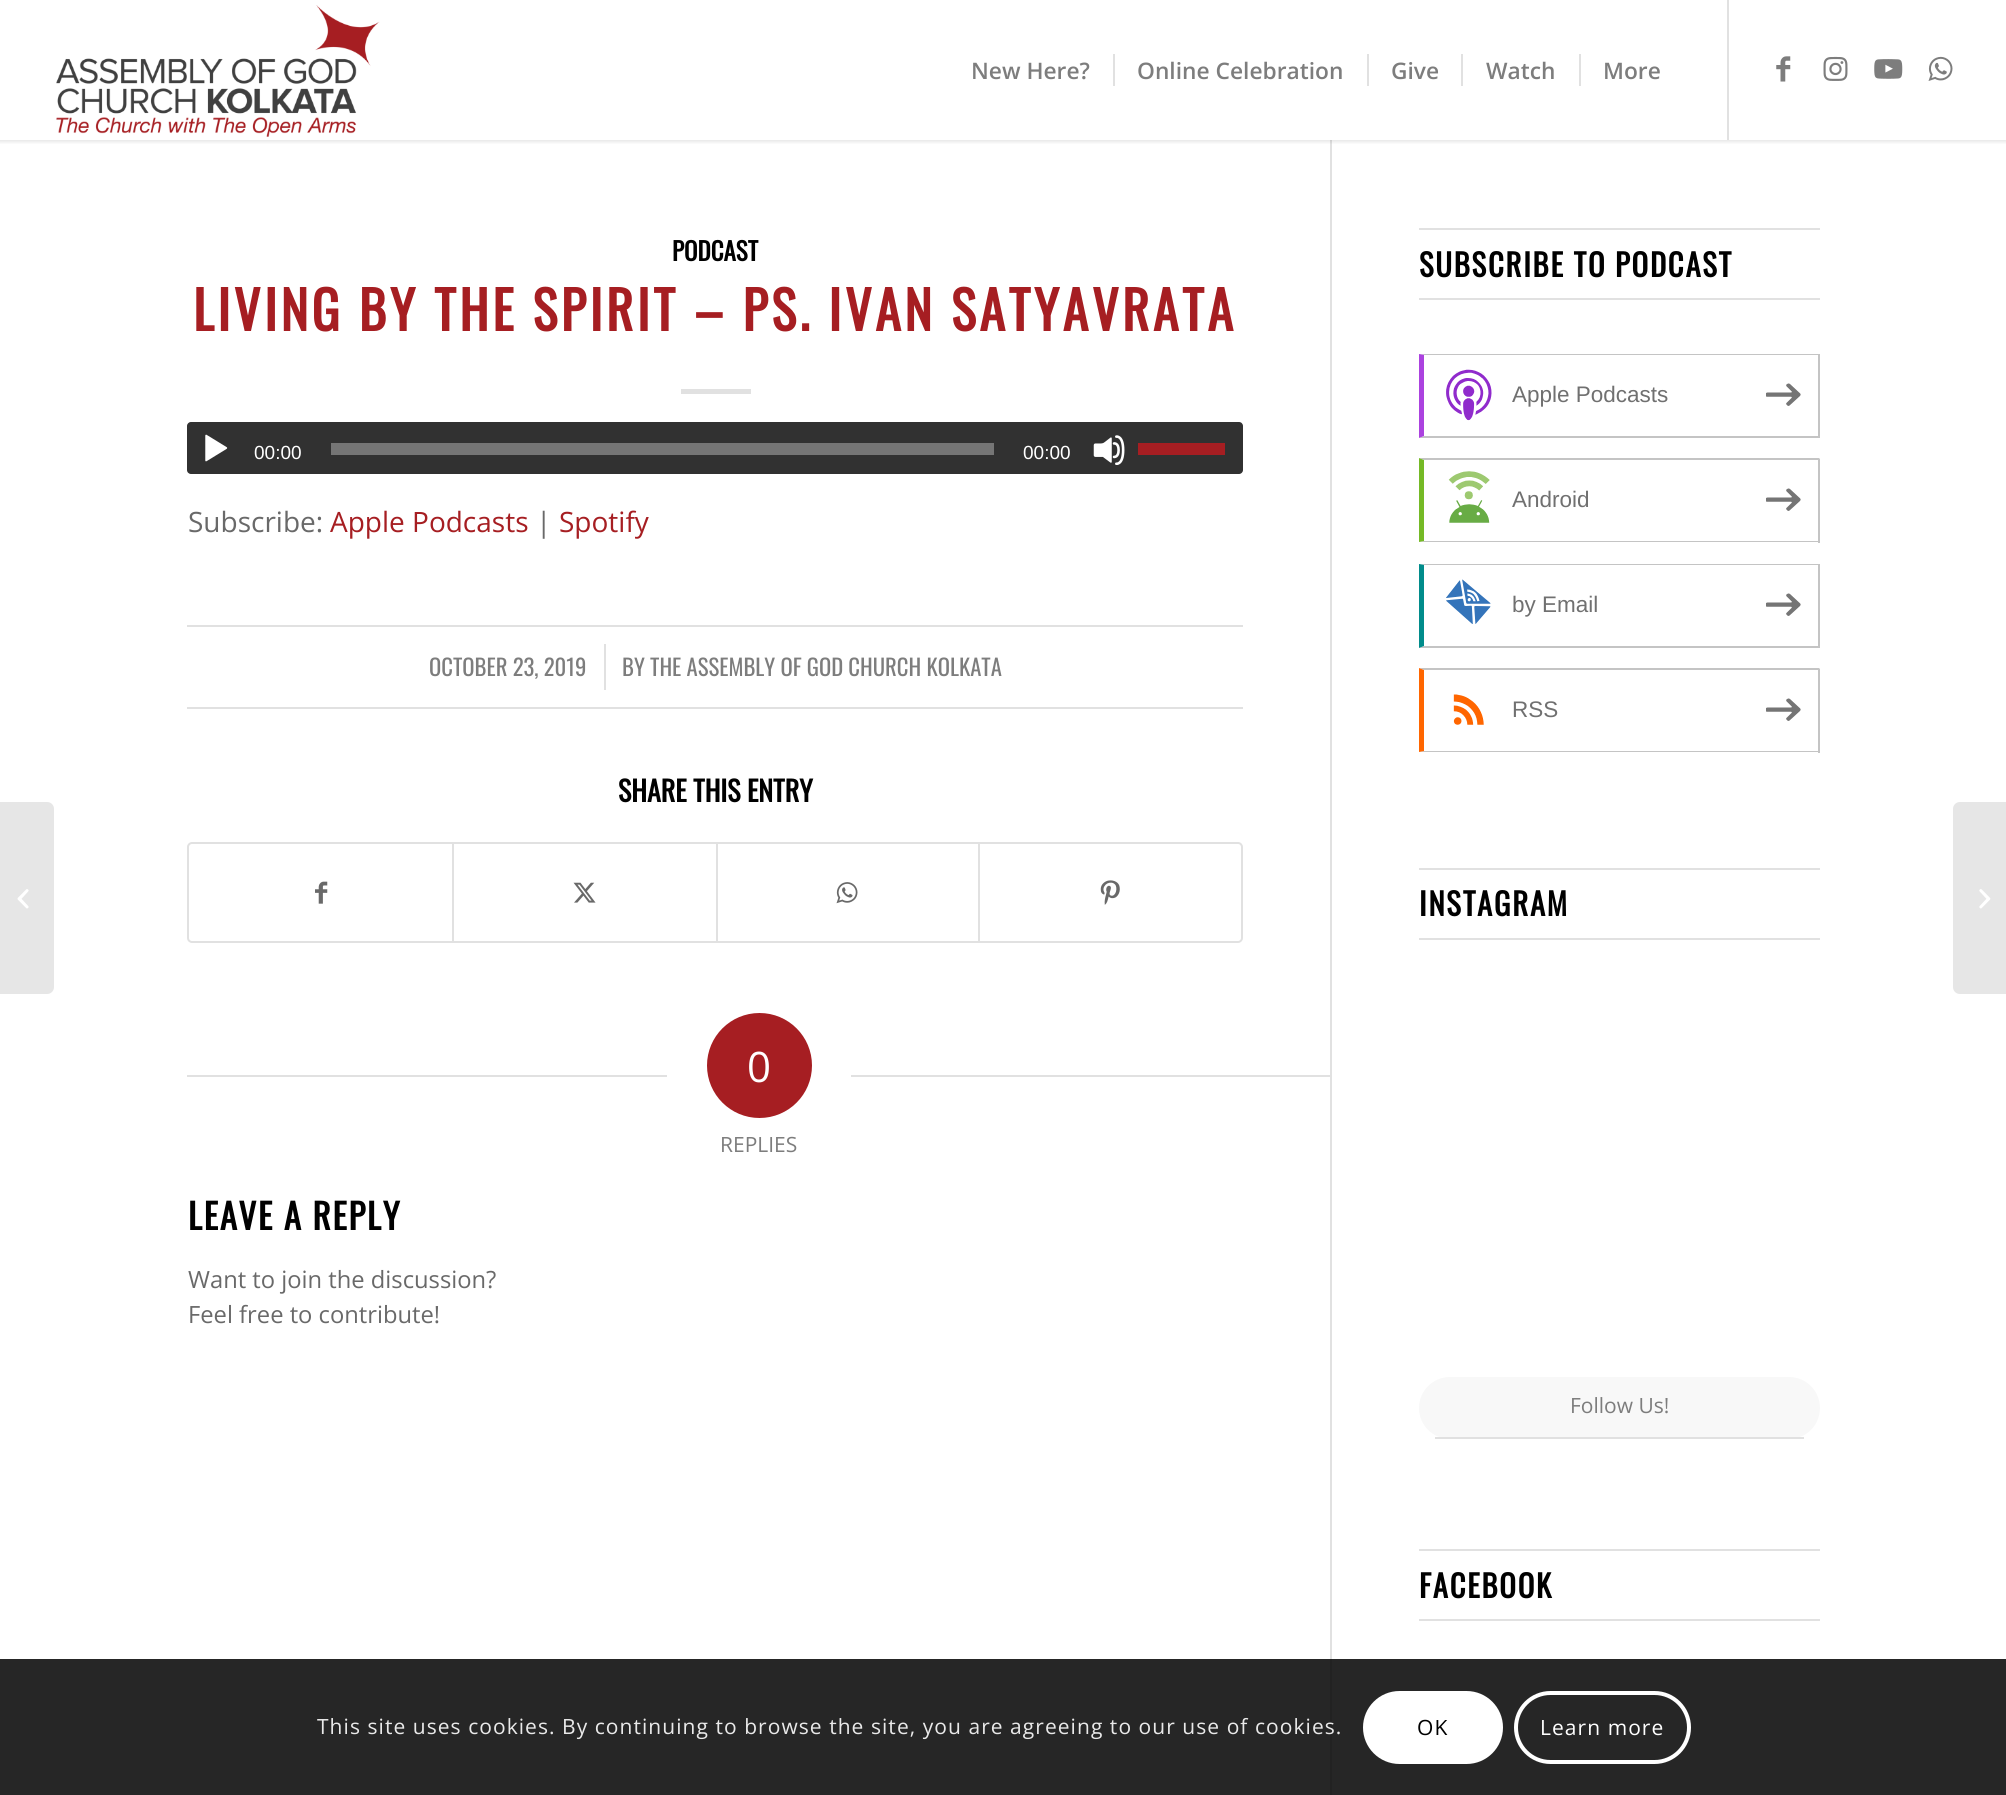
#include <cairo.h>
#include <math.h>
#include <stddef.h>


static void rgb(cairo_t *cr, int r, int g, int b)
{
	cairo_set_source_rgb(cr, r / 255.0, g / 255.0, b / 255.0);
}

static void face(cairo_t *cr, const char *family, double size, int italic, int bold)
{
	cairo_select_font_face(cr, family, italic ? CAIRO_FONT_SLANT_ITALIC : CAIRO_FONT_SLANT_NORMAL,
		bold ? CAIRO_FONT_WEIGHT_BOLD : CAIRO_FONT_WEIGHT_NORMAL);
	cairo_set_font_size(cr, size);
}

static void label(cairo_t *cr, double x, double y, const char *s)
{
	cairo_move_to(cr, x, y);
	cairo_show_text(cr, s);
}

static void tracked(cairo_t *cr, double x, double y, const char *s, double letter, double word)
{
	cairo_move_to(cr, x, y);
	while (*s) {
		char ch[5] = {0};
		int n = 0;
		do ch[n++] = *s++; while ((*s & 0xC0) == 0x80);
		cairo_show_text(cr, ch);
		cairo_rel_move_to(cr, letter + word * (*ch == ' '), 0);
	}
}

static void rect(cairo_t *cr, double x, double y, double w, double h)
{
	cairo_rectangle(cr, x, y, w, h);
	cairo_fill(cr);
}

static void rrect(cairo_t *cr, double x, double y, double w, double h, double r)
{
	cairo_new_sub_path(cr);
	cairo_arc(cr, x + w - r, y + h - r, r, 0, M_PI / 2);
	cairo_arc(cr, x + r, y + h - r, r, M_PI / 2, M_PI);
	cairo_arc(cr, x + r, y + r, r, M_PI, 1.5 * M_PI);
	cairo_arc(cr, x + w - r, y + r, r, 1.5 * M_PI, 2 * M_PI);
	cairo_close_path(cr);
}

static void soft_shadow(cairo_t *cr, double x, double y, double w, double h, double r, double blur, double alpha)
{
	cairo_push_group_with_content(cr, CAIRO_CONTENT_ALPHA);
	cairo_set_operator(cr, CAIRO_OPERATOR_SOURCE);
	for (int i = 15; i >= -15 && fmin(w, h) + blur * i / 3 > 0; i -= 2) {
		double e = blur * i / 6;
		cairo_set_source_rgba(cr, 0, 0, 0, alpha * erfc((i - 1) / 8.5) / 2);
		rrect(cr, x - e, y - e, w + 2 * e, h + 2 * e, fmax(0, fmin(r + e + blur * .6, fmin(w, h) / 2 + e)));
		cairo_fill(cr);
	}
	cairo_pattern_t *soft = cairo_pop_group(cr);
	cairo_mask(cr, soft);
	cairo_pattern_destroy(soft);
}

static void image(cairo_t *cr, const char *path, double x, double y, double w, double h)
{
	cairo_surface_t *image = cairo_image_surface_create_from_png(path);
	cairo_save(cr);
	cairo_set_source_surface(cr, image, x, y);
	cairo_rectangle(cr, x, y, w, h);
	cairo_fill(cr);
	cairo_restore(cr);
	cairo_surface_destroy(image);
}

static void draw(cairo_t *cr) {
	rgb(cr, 255, 255, 255);
	cairo_paint(cr);
	rgb(cr, 38, 38, 38);
	rect(cr, 0, 1659, 2006, 136);
	rgb(cr, 225, 225, 225);
	rect(cr, 1330, 140, 2, 1519);
	cairo_save(cr);
	cairo_rectangle(cr, 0, 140, 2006, 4);
	cairo_clip(cr);
	rgb(cr, 0, 0, 0);
	soft_shadow(cr, -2, -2, 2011, 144, 0, 2, 0.1);
	cairo_restore(cr);
	image(cr, "image0.png", 56, 5, 324, 132);
	rect(cr, 1727, 0, 2, 140);
	face(cr, "Open Sans SemiBold", 22.75, 0, 0);
	rgb(cr, 125, 125, 125);
	label(cr, 971, 79, "New Here?");
	label(cr, 1137, 79, "Online Celebration");
	rgb(cr, 225, 225, 225);
	rect(cr, 1113, 54, 2, 32);
	rgb(cr, 125, 125, 125);
	label(cr, 1391, 79, "Give");
	rgb(cr, 225, 225, 225);
	rect(cr, 1367, 54, 2, 32);
	rgb(cr, 125, 125, 125);
	label(cr, 1486, 79, "Watch");
	rgb(cr, 225, 225, 225);
	rect(cr, 1461, 54, 2, 32);
	rgb(cr, 125, 125, 125);
	label(cr, 1603, 79, "More");
	rgb(cr, 225, 225, 225);
	rect(cr, 1579, 54, 2, 32);
	image(cr, "image1.png", 1776, 56, 15, 26);
	image(cr, "image2.png", 1823, 56, 25, 25);
	image(cr, "image3.png", 1874, 59, 29, 20);
	image(cr, "image4.png", 1928, 56, 25, 25);
	rgb(cr, 230, 230, 230);
	cairo_new_path(cr);
	cairo_move_to(cr, 0, 802);
	cairo_line_to(cr, 47, 802);
	cairo_curve_to(cr, 51, 802, 54, 805, 54, 809);
	cairo_line_to(cr, 54, 987);
	cairo_curve_to(cr, 54, 991, 51, 994, 47, 994);
	cairo_line_to(cr, 0, 994);
	cairo_close_path(cr);
	cairo_fill(cr);
	image(cr, "image5.png", 17, 889, 12, 20);
	rgb(cr, 34, 34, 34);
	rect(cr, 1330, 1659, 2, 136);
	face(cr, "Oswald", 25, 0, 1);
	rgb(cr, 0, 0, 0);
	label(cr, 672, 261, "PODCAST");
	face(cr, "Oswald", 52.5, 0, 1);
	rgb(cr, 166, 30, 34);
	tracked(cr, 193, 331, "LIVING BY THE SPIRIT – PS. IVAN SATYAVRATA", 3.5, 0);
	rgb(cr, 225, 225, 225);
	rect(cr, 681, 389, 70, 5);
	rgb(cr, 49, 49, 49);
	rrect(cr, 187, 422, 1056, 52, 4);
	cairo_fill(cr);
	image(cr, "image6.png", 205, 434, 23, 28);
	face(cr, "Liberation Sans", 19, 0, 0);
	rgb(cr, 255, 255, 255);
	label(cr, 254, 459, "00:00");
	rgb(cr, 117, 117, 117);
	rect(cr, 331, 443, 663, 12);
	rgb(cr, 255, 255, 255);
	label(cr, 1023, 459, "00:00");
	image(cr, "image7.png", 1093, 435, 32, 30);
	rgb(cr, 166, 30, 34);
	rect(cr, 1138, 443, 87, 12);
	face(cr, "Open Sans", 28, 0, 0);
	rgb(cr, 105, 105, 105);
	label(cr, 188, 532, "Subscribe:");
	rgb(cr, 166, 30, 34);
	label(cr, 330, 532, "Apple Podcasts");
	rgb(cr, 105, 105, 105);
	label(cr, 536, 532, "|");
	rgb(cr, 166, 30, 34);
	label(cr, 559, 532, "Spotify");
	rgb(cr, 225, 225, 225);
	rect(cr, 187, 625, 1056, 2);
	rect(cr, 187, 707, 1056, 2);
	face(cr, "Oswald", 22.7, 0, 0);
	rgb(cr, 125, 125, 125);
	label(cr, 429, 676, "OCTOBER 23, 2019");
	rgb(cr, 225, 225, 225);
	rect(cr, 604, 644, 2, 46);
	rgb(cr, 125, 125, 125);
	label(cr, 622, 676, "BY THE ASSEMBLY OF GOD CHURCH KOLKATA");
	face(cr, "Oswald", 28, 0, 1);
	rgb(cr, 0, 0, 0);
	label(cr, 618, 802, "SHARE THIS ENTRY");
	rrect(cr, 188, 843, 1054, 99, 4);
	rgb(cr, 225, 225, 225);
	cairo_stroke(cr);
	image(cr, "image8.png", 315, 881, 13, 23);
	rect(cr, 452, 844, 2, 98);
	image(cr, "image9.png", 573, 882, 23, 21);
	rect(cr, 716, 844, 2, 98);
	image(cr, "image10.png", 836, 882, 22, 22);
	rect(cr, 978, 844, 2, 98);
	image(cr, "image11.png", 1100, 880, 20, 25);
	rect(cr, 187, 1075, 480, 2);
	rgb(cr, 166, 30, 34);
	cairo_arc(cr, 759.5, 1065.5, 52.5, 0, 2 * M_PI);
	cairo_fill(cr);
	face(cr, "Open Sans", 42, 0, 0);
	rgb(cr, 255, 255, 255);
	label(cr, 747, 1082, "0");
	rgb(cr, 225, 225, 225);
	rect(cr, 851, 1075, 479, 2);
	face(cr, "Open Sans", 21, 0, 0);
	rgb(cr, 125, 125, 125);
	label(cr, 720, 1152, "REPLIES");
	face(cr, "Oswald", 35, 0, 1);
	rgb(cr, 0, 0, 0);
	tracked(cr, 188, 1230, "LEAVE A REPLY", 1.75, 0);
	face(cr, "Open Sans", 23.75, 0, 0);
	rgb(cr, 105, 105, 105);
	label(cr, 188, 1288, "Want to join the discussion?");
	label(cr, 188, 1323, "Feel free to contribute!");
	rgb(cr, 225, 225, 225);
	rect(cr, 1419, 228, 401, 2);
	rect(cr, 1419, 298, 401, 2);
	face(cr, "Oswald", 30.75, 0, 1);
	rgb(cr, 0, 0, 0);
	tracked(cr, 1419, 277, "SUBSCRIBE TO PODCAST", 1.75, 0);
	rgb(cr, 196, 196, 196);
	cairo_new_path(cr);
	cairo_move_to(cr, 1419, 354);
	cairo_line_to(cr, 1820, 354);
	cairo_line_to(cr, 1818, 355);
	cairo_line_to(cr, 1424, 355);
	cairo_close_path(cr);
	cairo_fill(cr);
	rect(cr, 1818, 354, 2, 84);
	cairo_new_path(cr);
	cairo_move_to(cr, 1820, 438);
	cairo_line_to(cr, 1419, 438);
	cairo_line_to(cr, 1424, 436);
	cairo_line_to(cr, 1818, 436);
	cairo_close_path(cr);
	cairo_fill(cr);
	rgb(cr, 171, 66, 223);
	cairo_new_path(cr);
	cairo_move_to(cr, 1419, 438);
	cairo_line_to(cr, 1419, 354);
	cairo_line_to(cr, 1424, 355);
	cairo_line_to(cr, 1424, 436);
	cairo_close_path(cr);
	cairo_fill(cr);
	image(cr, "image12.png", 1446, 369, 46, 52);
	face(cr, "Liberation Sans", 22.5, 0, 0);
	rgb(cr, 112, 112, 112);
	label(cr, 1512, 402, "Apple Podcasts");
	image(cr, "image13.png", 1766, 383, 35, 23);
	rgb(cr, 196, 196, 196);
	cairo_new_path(cr);
	cairo_move_to(cr, 1419, 458);
	cairo_line_to(cr, 1820, 458);
	cairo_line_to(cr, 1818, 460);
	cairo_line_to(cr, 1424, 460);
	cairo_close_path(cr);
	cairo_fill(cr);
	rect(cr, 1818, 459, 2, 84);
	cairo_new_path(cr);
	cairo_move_to(cr, 1820, 542);
	cairo_line_to(cr, 1419, 542);
	cairo_line_to(cr, 1424, 541);
	cairo_line_to(cr, 1818, 541);
	cairo_close_path(cr);
	cairo_fill(cr);
	rgb(cr, 117, 186, 38);
	cairo_new_path(cr);
	cairo_move_to(cr, 1419, 542);
	cairo_line_to(cr, 1419, 458);
	cairo_line_to(cr, 1424, 460);
	cairo_line_to(cr, 1424, 541);
	cairo_close_path(cr);
	cairo_fill(cr);
	image(cr, "image14.png", 1448, 471, 42, 52);
	rgb(cr, 112, 112, 112);
	label(cr, 1512, 507, "Android");
	image(cr, "image15.png", 1766, 488, 35, 23);
	rgb(cr, 196, 196, 196);
	cairo_new_path(cr);
	cairo_move_to(cr, 1419, 564);
	cairo_line_to(cr, 1820, 564);
	cairo_line_to(cr, 1818, 565);
	cairo_line_to(cr, 1424, 565);
	cairo_close_path(cr);
	cairo_fill(cr);
	rect(cr, 1818, 564, 2, 84);
	cairo_new_path(cr);
	cairo_move_to(cr, 1820, 648);
	cairo_line_to(cr, 1419, 648);
	cairo_line_to(cr, 1424, 646);
	cairo_line_to(cr, 1818, 646);
	cairo_close_path(cr);
	cairo_fill(cr);
	rgb(cr, 1, 140, 139);
	cairo_new_path(cr);
	cairo_move_to(cr, 1419, 648);
	cairo_line_to(cr, 1419, 564);
	cairo_line_to(cr, 1424, 565);
	cairo_line_to(cr, 1424, 646);
	cairo_close_path(cr);
	cairo_fill(cr);
	image(cr, "image16.png", 1446, 579, 45, 45);
	rgb(cr, 112, 112, 112);
	label(cr, 1512, 612, "by Email");
	image(cr, "image13.png", 1766, 593, 35, 23);
	rgb(cr, 196, 196, 196);
	cairo_new_path(cr);
	cairo_move_to(cr, 1419, 668);
	cairo_line_to(cr, 1820, 668);
	cairo_line_to(cr, 1818, 670);
	cairo_line_to(cr, 1424, 670);
	cairo_close_path(cr);
	cairo_fill(cr);
	rect(cr, 1818, 669, 2, 84);
	cairo_new_path(cr);
	cairo_move_to(cr, 1820, 752);
	cairo_line_to(cr, 1419, 752);
	cairo_line_to(cr, 1424, 751);
	cairo_line_to(cr, 1818, 751);
	cairo_close_path(cr);
	cairo_fill(cr);
	rgb(cr, 255, 102, 0);
	cairo_new_path(cr);
	cairo_move_to(cr, 1419, 752);
	cairo_line_to(cr, 1419, 668);
	cairo_line_to(cr, 1424, 670);
	cairo_line_to(cr, 1424, 751);
	cairo_close_path(cr);
	cairo_fill(cr);
	image(cr, "image17.png", 1453, 694, 31, 31);
	rgb(cr, 112, 112, 112);
	label(cr, 1512, 717, "RSS");
	image(cr, "image13.png", 1766, 698, 35, 23);
	rgb(cr, 225, 225, 225);
	rect(cr, 1419, 868, 401, 2);
	rect(cr, 1419, 938, 401, 2);
	face(cr, "Oswald", 30.75, 0, 1);
	rgb(cr, 0, 0, 0);
	tracked(cr, 1419, 916, "INSTAGRAM", 1.75, 0);
	rgb(cr, 248, 248, 248);
	rrect(cr, 1419, 1377, 401, 62, 31);
	cairo_fill(cr);
	rgb(cr, 225, 225, 225);
	rect(cr, 1435, 1437, 369, 2);
	face(cr, "Open Sans", 21, 0, 0);
	rgb(cr, 125, 125, 125);
	label(cr, 1570, 1413, "Follow Us!");
	rgb(cr, 225, 225, 225);
	rect(cr, 1419, 1549, 401, 2);
	rect(cr, 1419, 1619, 401, 2);
	face(cr, "Oswald", 30.75, 0, 1);
	rgb(cr, 0, 0, 0);
	tracked(cr, 1419, 1598, "FACEBOOK", 1.75, 0);
	rgb(cr, 230, 230, 230);
	cairo_new_path(cr);
	cairo_move_to(cr, 1960, 802);
	cairo_line_to(cr, 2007, 802);
	cairo_line_to(cr, 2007, 994);
	cairo_line_to(cr, 1960, 994);
	cairo_curve_to(cr, 1956, 994, 1953, 991, 1953, 987);
	cairo_line_to(cr, 1953, 809);
	cairo_curve_to(cr, 1953, 805, 1956, 802, 1960, 802);
	cairo_close_path(cr);
	cairo_fill(cr);
	image(cr, "image18.png", 1979, 889, 12, 20);
	face(cr, "Open Sans", 21, 0, 0);
	rgb(cr, 233, 233, 233);
	tracked(cr, 317, 1734, "This site uses cookies. By continuing to browse the site, you are agreeing to our use of cookies.", 1.05, 0);
	rgb(cr, 255, 255, 255);
	rrect(cr, 1363, 1691, 140, 73, 36.5);
	cairo_fill(cr);
	rgb(cr, 0, 0, 0);
	tracked(cr, 1417, 1735, "OK", 1.05, 0);
	rrect(cr, 1516, 1693, 173, 69, 34.5);
	rgb(cr, 255, 255, 255);
	cairo_set_line_width(cr, 4);
	cairo_stroke(cr);
	tracked(cr, 1540, 1735, "Learn more", 1.05, 0);
}

int main(void) {
	cairo_surface_t *surface = cairo_image_surface_create(CAIRO_FORMAT_RGB24, 2006, 1795);
	cairo_t *cr = cairo_create(surface);
	cairo_font_options_t *options = cairo_font_options_create();
	cairo_font_options_set_hint_metrics(options, CAIRO_HINT_METRICS_OFF);
	cairo_font_options_set_hint_style(options, CAIRO_HINT_STYLE_NONE);
	cairo_set_font_options(cr, options);
	cairo_set_miter_limit(cr, 4);
	draw(cr);
	cairo_surface_write_to_png(surface, "render.png");
	cairo_font_options_destroy(options);
	cairo_destroy(cr);
	cairo_surface_destroy(surface);
	return 0;
}
